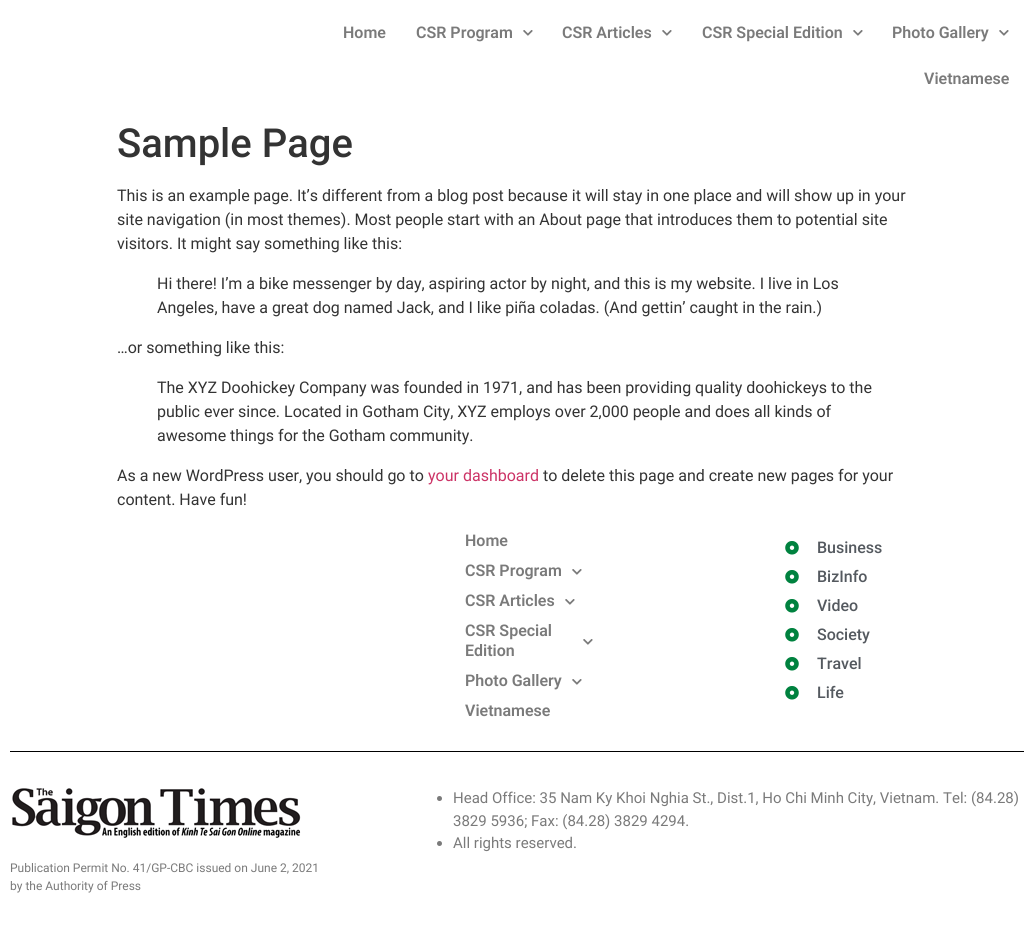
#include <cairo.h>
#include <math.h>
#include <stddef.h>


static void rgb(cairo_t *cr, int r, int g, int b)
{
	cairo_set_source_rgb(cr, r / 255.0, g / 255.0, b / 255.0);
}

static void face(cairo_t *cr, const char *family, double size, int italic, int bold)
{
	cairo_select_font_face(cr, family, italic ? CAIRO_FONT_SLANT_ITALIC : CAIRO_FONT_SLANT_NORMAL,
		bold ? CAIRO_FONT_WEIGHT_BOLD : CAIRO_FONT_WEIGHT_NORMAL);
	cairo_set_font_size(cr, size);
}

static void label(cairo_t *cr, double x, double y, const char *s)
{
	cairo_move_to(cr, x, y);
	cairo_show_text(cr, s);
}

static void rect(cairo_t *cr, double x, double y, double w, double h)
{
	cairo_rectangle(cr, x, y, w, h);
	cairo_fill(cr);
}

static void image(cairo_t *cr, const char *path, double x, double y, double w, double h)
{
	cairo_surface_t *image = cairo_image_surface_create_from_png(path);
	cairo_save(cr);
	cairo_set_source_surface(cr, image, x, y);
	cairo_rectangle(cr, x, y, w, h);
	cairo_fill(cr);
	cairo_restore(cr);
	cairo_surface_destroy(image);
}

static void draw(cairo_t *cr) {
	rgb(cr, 255, 255, 255);
	cairo_paint(cr);
	face(cr, "Roboto SemiBold", 16, 0, 0);
	rgb(cr, 122, 122, 122);
	label(cr, 343, 38, "Home");
	label(cr, 416, 38, "CSR Program");
	image(cr, "image0.png", 523, 30, 10, 6);
	label(cr, 562, 38, "CSR Articles");
	image(cr, "image0.png", 662, 30, 10, 6);
	label(cr, 702, 38, "CSR Special Edition");
	image(cr, "image0.png", 853, 30, 10, 6);
	label(cr, 892, 38, "Photo Gallery");
	image(cr, "image0.png", 999, 30, 10, 6);
	label(cr, 924, 84, "Vietnamese");
	face(cr, "Roboto Medium", 40, 0, 0);
	rgb(cr, 51, 51, 51);
	label(cr, 117, 157, "Sample Page");
	face(cr, "Roboto", 16, 0, 0);
	label(cr, 117, 201, "This is an example page. It’s different from a blog post because it will stay in one place and will show up in your");
	label(cr, 117, 225, "site navigation (in most themes). Most people start with an About page that introduces them to potential site");
	label(cr, 117, 249, "visitors. It might say something like this:");
	label(cr, 157, 289, "Hi there! I’m a bike messenger by day, aspiring actor by night, and this is my website. I live in Los");
	label(cr, 157, 313, "Angeles, have a great dog named Jack, and I like piña coladas. (And gettin’ caught in the rain.)");
	label(cr, 117, 353, "…or something like this:");
	label(cr, 157, 393, "The XYZ Doohickey Company was founded in 1971, and has been providing quality doohickeys to the");
	label(cr, 157, 417, "public ever since. Located in Gotham City, XYZ employs over 2,000 people and does all kinds of");
	label(cr, 157, 441, "awesome things for the Gotham community.");
	label(cr, 117, 481, "As a new WordPress user, you should go to");
	rgb(cr, 204, 51, 102);
	label(cr, 428, 481, "your dashboard");
	rgb(cr, 51, 51, 51);
	label(cr, 543, 481, "to delete this page and create new pages for your");
	label(cr, 117, 505, "content. Have fun!");
	face(cr, "Roboto SemiBold", 16, 0, 0);
	rgb(cr, 122, 122, 122);
	label(cr, 465, 546, "Home");
	label(cr, 465, 576, "CSR Program");
	image(cr, "image0.png", 572, 569, 10, 6);
	label(cr, 465, 606, "CSR Articles");
	image(cr, "image0.png", 565, 599, 10, 6);
	label(cr, 465, 636, "CSR Special");
	image(cr, "image0.png", 583, 639, 10, 6);
	label(cr, 465, 656, "Edition");
	label(cr, 465, 686, "Photo Gallery");
	image(cr, "image0.png", 572, 679, 10, 6);
	label(cr, 465, 716, "Vietnamese");
	image(cr, "image1.png", 785, 541, 14, 14);
	face(cr, "Roboto Medium", 16, 0, 0);
	rgb(cr, 84, 89, 95);
	label(cr, 817, 553, "Business");
	image(cr, "image1.png", 785, 570, 14, 14);
	label(cr, 817, 582, "BizInfo");
	image(cr, "image1.png", 785, 599, 14, 14);
	label(cr, 817, 611, "Video");
	image(cr, "image1.png", 785, 628, 14, 14);
	label(cr, 817, 640, "Society");
	image(cr, "image1.png", 785, 657, 14, 14);
	label(cr, 817, 669, "Travel");
	image(cr, "image1.png", 785, 686, 14, 14);
	label(cr, 817, 698, "Life");
	rgb(cr, 0, 0, 0);
	rect(cr, 10, 751, 1014, 1);
	rgb(cr, 122, 122, 122);
	cairo_new_path(cr);
	cairo_arc(cr, 439.5, 798.5, 2.5, 0, 2 * M_PI);
	cairo_fill(cr);
	face(cr, "Roboto", 15, 0, 0);
	label(cr, 453, 803, "Head Office: 35 Nam Ky Khoi Nghia St., Dist.1, Ho Chi Minh City, Vietnam. Tel: (84.28)");
	label(cr, 453, 826, "3829 5936; Fax: (84.28) 3829 4294.");
	cairo_new_path(cr);
	cairo_arc(cr, 439.5, 843.5, 2.5, 0, 2 * M_PI);
	cairo_fill(cr);
	label(cr, 453, 848, "All rights reserved.");
	image(cr, "image2.png", 12, 788, 289, 50);
	face(cr, "Roboto", 12, 0, 0);
	label(cr, 10, 872, "Publication Permit No. 41/GP-CBC issued on June 2, 2021");
	label(cr, 10, 890, "by the Authority of Press");
}

int main(void) {
	cairo_surface_t *surface = cairo_image_surface_create(CAIRO_FORMAT_RGB24, 1034, 938);
	cairo_t *cr = cairo_create(surface);
	cairo_font_options_t *options = cairo_font_options_create();
	cairo_font_options_set_hint_metrics(options, CAIRO_HINT_METRICS_OFF);
	cairo_font_options_set_hint_style(options, CAIRO_HINT_STYLE_NONE);
	cairo_set_font_options(cr, options);
	cairo_set_miter_limit(cr, 4);
	draw(cr);
	cairo_surface_write_to_png(surface, "render.png");
	cairo_font_options_destroy(options);
	cairo_destroy(cr);
	cairo_surface_destroy(surface);
	return 0;
}
